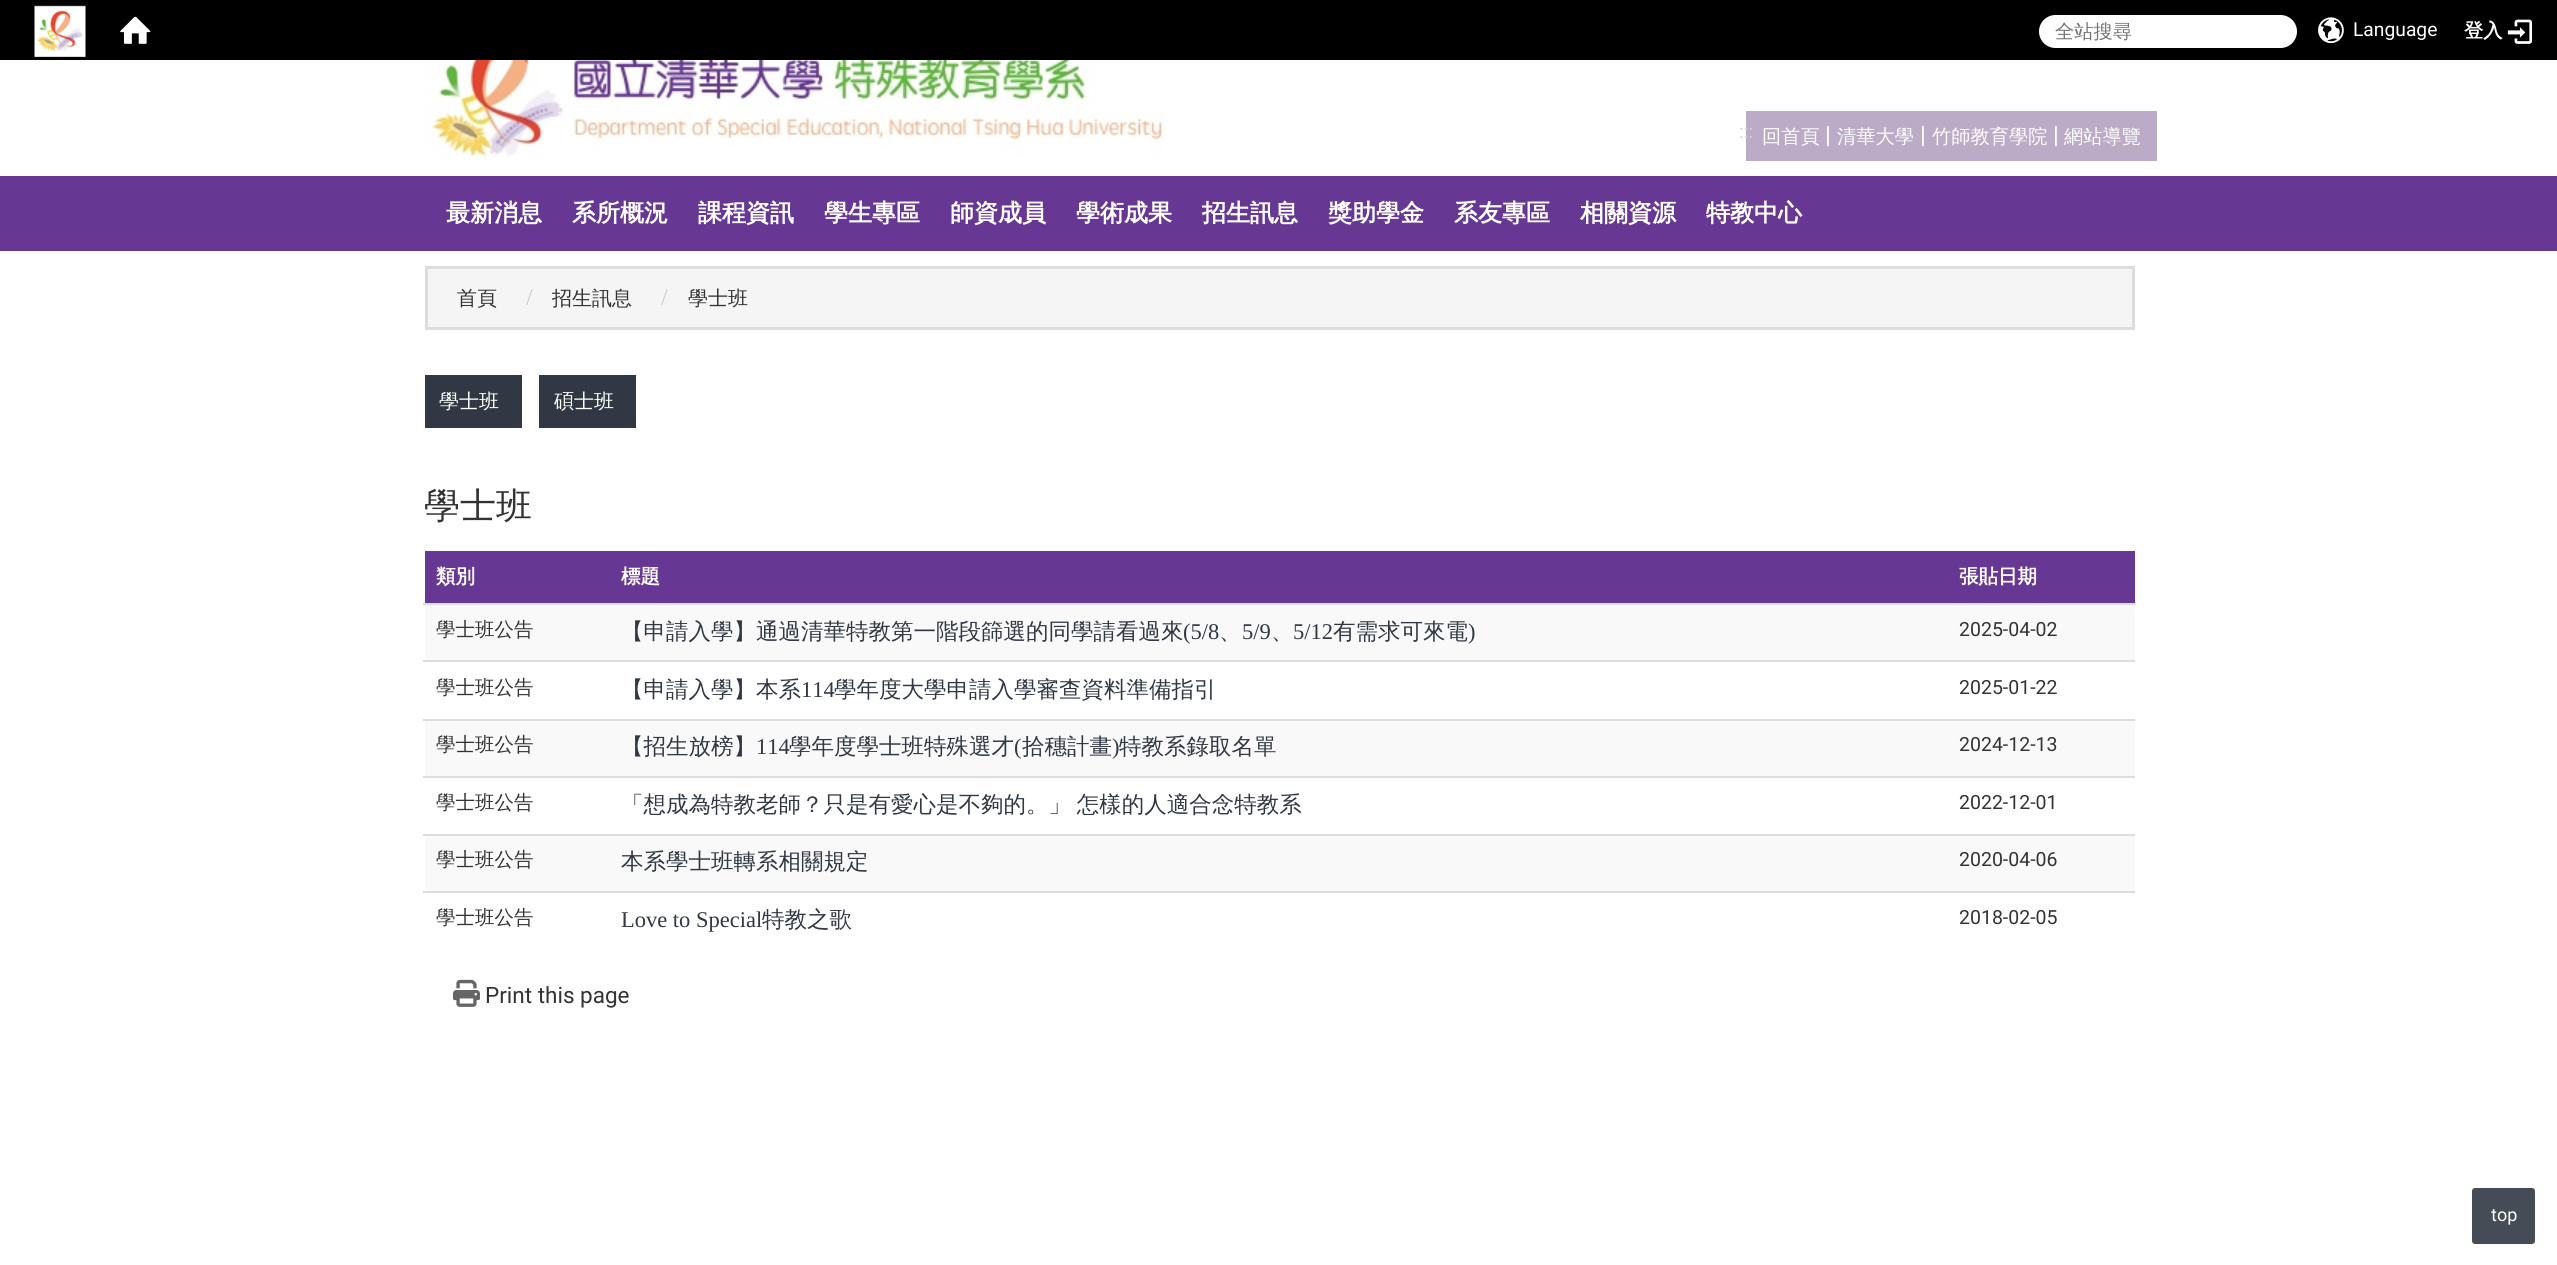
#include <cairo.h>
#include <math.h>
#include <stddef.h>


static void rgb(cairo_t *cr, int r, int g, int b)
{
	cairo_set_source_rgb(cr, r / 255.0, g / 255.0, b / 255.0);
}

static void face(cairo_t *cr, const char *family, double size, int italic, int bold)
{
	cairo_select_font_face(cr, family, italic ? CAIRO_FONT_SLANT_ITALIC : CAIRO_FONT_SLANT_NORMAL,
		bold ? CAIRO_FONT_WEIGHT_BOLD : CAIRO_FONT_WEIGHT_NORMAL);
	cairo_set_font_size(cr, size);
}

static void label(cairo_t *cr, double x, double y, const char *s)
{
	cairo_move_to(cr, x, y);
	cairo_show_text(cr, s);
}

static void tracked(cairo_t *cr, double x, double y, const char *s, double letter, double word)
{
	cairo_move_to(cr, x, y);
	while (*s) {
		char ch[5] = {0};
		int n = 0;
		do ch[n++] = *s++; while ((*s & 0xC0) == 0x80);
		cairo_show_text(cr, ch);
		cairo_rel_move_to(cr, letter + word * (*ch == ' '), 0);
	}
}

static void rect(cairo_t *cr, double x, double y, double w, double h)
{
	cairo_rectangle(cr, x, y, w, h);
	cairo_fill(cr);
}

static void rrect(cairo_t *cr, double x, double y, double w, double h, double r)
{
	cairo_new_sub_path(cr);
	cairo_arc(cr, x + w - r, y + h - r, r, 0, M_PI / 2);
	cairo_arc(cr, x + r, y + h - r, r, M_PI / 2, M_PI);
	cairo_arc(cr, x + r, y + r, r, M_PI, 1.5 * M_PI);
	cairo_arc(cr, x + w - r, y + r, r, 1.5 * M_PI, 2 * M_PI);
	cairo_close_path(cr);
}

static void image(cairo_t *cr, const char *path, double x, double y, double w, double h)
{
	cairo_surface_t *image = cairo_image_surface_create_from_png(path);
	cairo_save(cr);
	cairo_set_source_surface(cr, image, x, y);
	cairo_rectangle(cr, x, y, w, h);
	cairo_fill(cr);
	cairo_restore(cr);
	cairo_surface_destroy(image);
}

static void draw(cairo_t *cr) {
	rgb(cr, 255, 255, 255);
	cairo_paint(cr);
	rgb(cr, 0, 0, 0);
	rect(cr, 0, 0, 2557, 60);
	image(cr, "image0.png", 34, 5, 52, 52);
	image(cr, "image1.png", 120, 16, 31, 28);
	rgb(cr, 255, 255, 255);
	rrect(cr, 2039, 15, 258, 33, 16.5);
	cairo_fill(cr);
	face(cr, "WenQuanYi Zen Hei Medium", 19.25, 0, 0);
	rgb(cr, 117, 117, 117);
	label(cr, 2055, 38, "全站搜尋");
	image(cr, "image2.png", 2318, 17, 26, 27);
	face(cr, "Roboto", 19.25, 0, 0);
	rgb(cr, 255, 255, 255);
	label(cr, 2353, 36, "Language");
	face(cr, "WenQuanYi Zen Hei", 19.25, 0, 1);
	label(cr, 2464, 37, "登入");
	image(cr, "image3.png", 2507, 19, 26, 25);
	image(cr, "image4.png", 425, 60, 740, 100);
	rgb(cr, 188, 171, 199);
	rect(cr, 1746, 111, 411, 50);
	face(cr, "Roboto", 19.25, 0, 0);
	rgb(cr, 218, 208, 224);
	label(cr, 1739, 138, ":::");
	face(cr, "WenQuanYi Zen Hei Medium", 19.25, 0, 0);
	rgb(cr, 255, 255, 255);
	label(cr, 1762, 143, "回首頁");
	face(cr, "Roboto", 24, 0, 0);
	label(cr, 1825, 143, "|");
	face(cr, "WenQuanYi Zen Hei Medium", 19.25, 0, 0);
	label(cr, 1837, 143, "清華大學");
	face(cr, "Roboto", 24, 0, 0);
	label(cr, 1920, 143, "|");
	face(cr, "WenQuanYi Zen Hei Medium", 19.25, 0, 0);
	label(cr, 1932, 143, "竹師教育學院");
	face(cr, "Roboto", 24, 0, 0);
	label(cr, 2053, 143, "|");
	face(cr, "WenQuanYi Zen Hei Medium", 19.25, 0, 0);
	label(cr, 2064, 143, "網站導覽");
	rgb(cr, 103, 55, 148);
	rect(cr, 0, 176, 2557, 75);
	face(cr, "WenQuanYi Zen Hei", 24, 0, 1);
	rgb(cr, 255, 255, 255);
	label(cr, 446, 221, "最新消息");
	label(cr, 572, 221, "系所概況");
	label(cr, 698, 221, "課程資訊");
	label(cr, 824, 221, "學生專區");
	label(cr, 950, 221, "師資成員");
	label(cr, 1076, 221, "學術成果");
	label(cr, 1202, 221, "招生訊息");
	label(cr, 1328, 221, "獎助學金");
	label(cr, 1454, 221, "系友專區");
	label(cr, 1580, 221, "相關資源");
	label(cr, 1706, 221, "特教中心");
	rgb(cr, 245, 245, 245);
	cairo_rectangle(cr, 426.5, 267.5, 1707, 61);
	cairo_fill_preserve(cr);
	rgb(cr, 221, 221, 221);
	cairo_set_line_width(cr, 3);
	cairo_stroke(cr);
	face(cr, "WenQuanYi Zen Hei Medium", 20, 0, 0);
	rgb(cr, 51, 51, 51);
	label(cr, 457, 305, "首頁");
	face(cr, "Liberation Serif", 24, 0, 0);
	rgb(cr, 204, 204, 204);
	label(cr, 526, 305, "/");
	face(cr, "WenQuanYi Zen Hei Medium", 20, 0, 0);
	rgb(cr, 51, 51, 51);
	label(cr, 552, 305, "招生訊息");
	face(cr, "Liberation Serif", 24, 0, 0);
	rgb(cr, 204, 204, 204);
	label(cr, 661, 305, "/");
	face(cr, "WenQuanYi Zen Hei Medium", 20, 0, 0);
	rgb(cr, 51, 51, 51);
	label(cr, 688, 305, "學士班");
	rgb(cr, 49, 56, 67);
	rect(cr, 425, 375, 97, 53);
	rgb(cr, 255, 255, 255);
	label(cr, 439, 408, "學士班");
	rgb(cr, 49, 56, 67);
	rect(cr, 539, 375, 97, 53);
	rgb(cr, 255, 255, 255);
	label(cr, 554, 408, "碩士班");
	face(cr, "WenQuanYi Zen Hei Medium", 36, 0, 0);
	rgb(cr, 51, 51, 51);
	label(cr, 424, 518, "學士班");
	rgb(cr, 103, 55, 148);
	rect(cr, 425, 551, 1710, 52);
	face(cr, "WenQuanYi Zen Hei", 19.5, 0, 1);
	rgb(cr, 255, 255, 255);
	label(cr, 436, 583, "類別");
	label(cr, 621, 583, "標題");
	label(cr, 1959, 583, "張貼日期");
	rgb(cr, 249, 249, 249);
	rect(cr, 425, 605, 1710, 55);
	face(cr, "WenQuanYi Zen Hei Medium", 19.5, 0, 0);
	rgb(cr, 51, 51, 51);
	label(cr, 436, 636, "學士班公告");
	face(cr, "WenQuanYi Zen Hei Medium", 22.5, 0, 0);
	rgb(cr, 49, 56, 67);
	label(cr, 621, 639, "【申請入學】通過清華特教第一階段篩選的同學請看過來");
	face(cr, "Liberation Serif", 22.5, 0, 0);
	label(cr, 1183, 639, "(5/8");
	face(cr, "WenQuanYi Zen Hei Medium", 22.5, 0, 0);
	label(cr, 1219, 639, "、");
	face(cr, "Liberation Serif", 22.5, 0, 0);
	label(cr, 1242, 639, "5/9");
	face(cr, "WenQuanYi Zen Hei Medium", 22.5, 0, 0);
	label(cr, 1271, 639, "、");
	face(cr, "Liberation Serif", 22.5, 0, 0);
	label(cr, 1293, 639, "5/12");
	face(cr, "WenQuanYi Zen Hei Medium", 22.5, 0, 0);
	label(cr, 1333, 639, "有需求可來電");
	face(cr, "Liberation Serif", 22.5, 0, 0);
	label(cr, 1468, 639, ")");
	rgb(cr, 221, 221, 221);
	rect(cr, 423, 603, 1712, 2);
	face(cr, "Roboto", 19.5, 0, 0);
	rgb(cr, 51, 51, 51);
	label(cr, 1959, 636, "2025-04-02");
	face(cr, "WenQuanYi Zen Hei Medium", 19.5, 0, 0);
	label(cr, 436, 694, "學士班公告");
	face(cr, "WenQuanYi Zen Hei Medium", 22.5, 0, 0);
	rgb(cr, 49, 56, 67);
	label(cr, 621, 697, "【申請入學】本系");
	face(cr, "Liberation Serif", 22.5, 0, 0);
	label(cr, 801, 697, "114");
	face(cr, "WenQuanYi Zen Hei Medium", 22.5, 0, 0);
	label(cr, 834, 697, "學年度大學申請入學審查資料準備指引");
	rgb(cr, 221, 221, 221);
	rect(cr, 423, 660, 1712, 2);
	face(cr, "Roboto", 19.5, 0, 0);
	rgb(cr, 51, 51, 51);
	label(cr, 1959, 694, "2025-01-22");
	rgb(cr, 249, 249, 249);
	rect(cr, 425, 721, 1710, 55);
	face(cr, "WenQuanYi Zen Hei Medium", 19.5, 0, 0);
	rgb(cr, 51, 51, 51);
	label(cr, 436, 751, "學士班公告");
	face(cr, "WenQuanYi Zen Hei Medium", 22.5, 0, 0);
	rgb(cr, 49, 56, 67);
	label(cr, 621, 754, "【招生放榜】");
	face(cr, "Liberation Serif", 22.5, 0, 0);
	label(cr, 756, 754, "114");
	face(cr, "WenQuanYi Zen Hei Medium", 22.5, 0, 0);
	label(cr, 789, 754, "學年度學士班特殊選才");
	face(cr, "Liberation Serif", 22.5, 0, 0);
	label(cr, 1014, 754, "(");
	face(cr, "WenQuanYi Zen Hei Medium", 22.5, 0, 0);
	label(cr, 1022, 754, "拾穗計畫");
	face(cr, "Liberation Serif", 22.5, 0, 0);
	label(cr, 1112, 754, ")");
	face(cr, "WenQuanYi Zen Hei Medium", 22.5, 0, 0);
	label(cr, 1119, 754, "特教系錄取名單");
	rgb(cr, 221, 221, 221);
	rect(cr, 423, 719, 1712, 2);
	face(cr, "Roboto", 19.5, 0, 0);
	rgb(cr, 51, 51, 51);
	label(cr, 1959, 751, "2024-12-13");
	face(cr, "WenQuanYi Zen Hei Medium", 19.5, 0, 0);
	label(cr, 436, 809, "學士班公告");
	face(cr, "WenQuanYi Zen Hei Medium", 22.5, 0, 0);
	rgb(cr, 49, 56, 67);
	tracked(cr, 621, 812, "「想成為特教老師？只是有愛心是不夠的。」 怎樣的人適合念特教系", 0, -1);
	rgb(cr, 221, 221, 221);
	rect(cr, 423, 776, 1712, 2);
	face(cr, "Roboto", 19.5, 0, 0);
	rgb(cr, 51, 51, 51);
	label(cr, 1959, 809, "2022-12-01");
	rgb(cr, 249, 249, 249);
	rect(cr, 425, 836, 1710, 55);
	face(cr, "WenQuanYi Zen Hei Medium", 19.5, 0, 0);
	rgb(cr, 51, 51, 51);
	label(cr, 436, 866, "學士班公告");
	face(cr, "WenQuanYi Zen Hei Medium", 22.5, 0, 0);
	rgb(cr, 49, 56, 67);
	label(cr, 621, 869, "本系學士班轉系相關規定");
	rgb(cr, 221, 221, 221);
	rect(cr, 423, 834, 1712, 2);
	face(cr, "Roboto", 19.5, 0, 0);
	rgb(cr, 51, 51, 51);
	label(cr, 1959, 866, "2020-04-06");
	face(cr, "WenQuanYi Zen Hei Medium", 19.5, 0, 0);
	label(cr, 436, 924, "學士班公告");
	face(cr, "Liberation Serif", 22.5, 0, 0);
	rgb(cr, 49, 56, 67);
	label(cr, 621, 927, "Love to Special");
	face(cr, "WenQuanYi Zen Hei Medium", 22.5, 0, 0);
	label(cr, 762, 927, "特教之歌");
	rgb(cr, 221, 221, 221);
	rect(cr, 423, 891, 1712, 2);
	face(cr, "Roboto", 19.5, 0, 0);
	rgb(cr, 51, 51, 51);
	label(cr, 1959, 924, "2018-02-05");
	image(cr, "image5.png", 453, 979, 27, 28);
	face(cr, "Roboto", 22.5, 0, 0);
	label(cr, 485, 1003, "Print this page");
	rgb(cr, 70, 76, 86);
	rrect(cr, 2472, 1188, 63, 56, 3);
	cairo_fill(cr);
	face(cr, "Roboto", 18, 0, 0);
	rgb(cr, 255, 255, 255);
	label(cr, 2491, 1221, "top");
}

int main(void) {
	cairo_surface_t *surface = cairo_image_surface_create(CAIRO_FORMAT_RGB24, 2557, 1265);
	cairo_t *cr = cairo_create(surface);
	cairo_font_options_t *options = cairo_font_options_create();
	cairo_font_options_set_hint_metrics(options, CAIRO_HINT_METRICS_OFF);
	cairo_font_options_set_hint_style(options, CAIRO_HINT_STYLE_NONE);
	cairo_set_font_options(cr, options);
	cairo_set_miter_limit(cr, 4);
	draw(cr);
	cairo_surface_write_to_png(surface, "render.png");
	cairo_font_options_destroy(options);
	cairo_destroy(cr);
	cairo_surface_destroy(surface);
	return 0;
}
